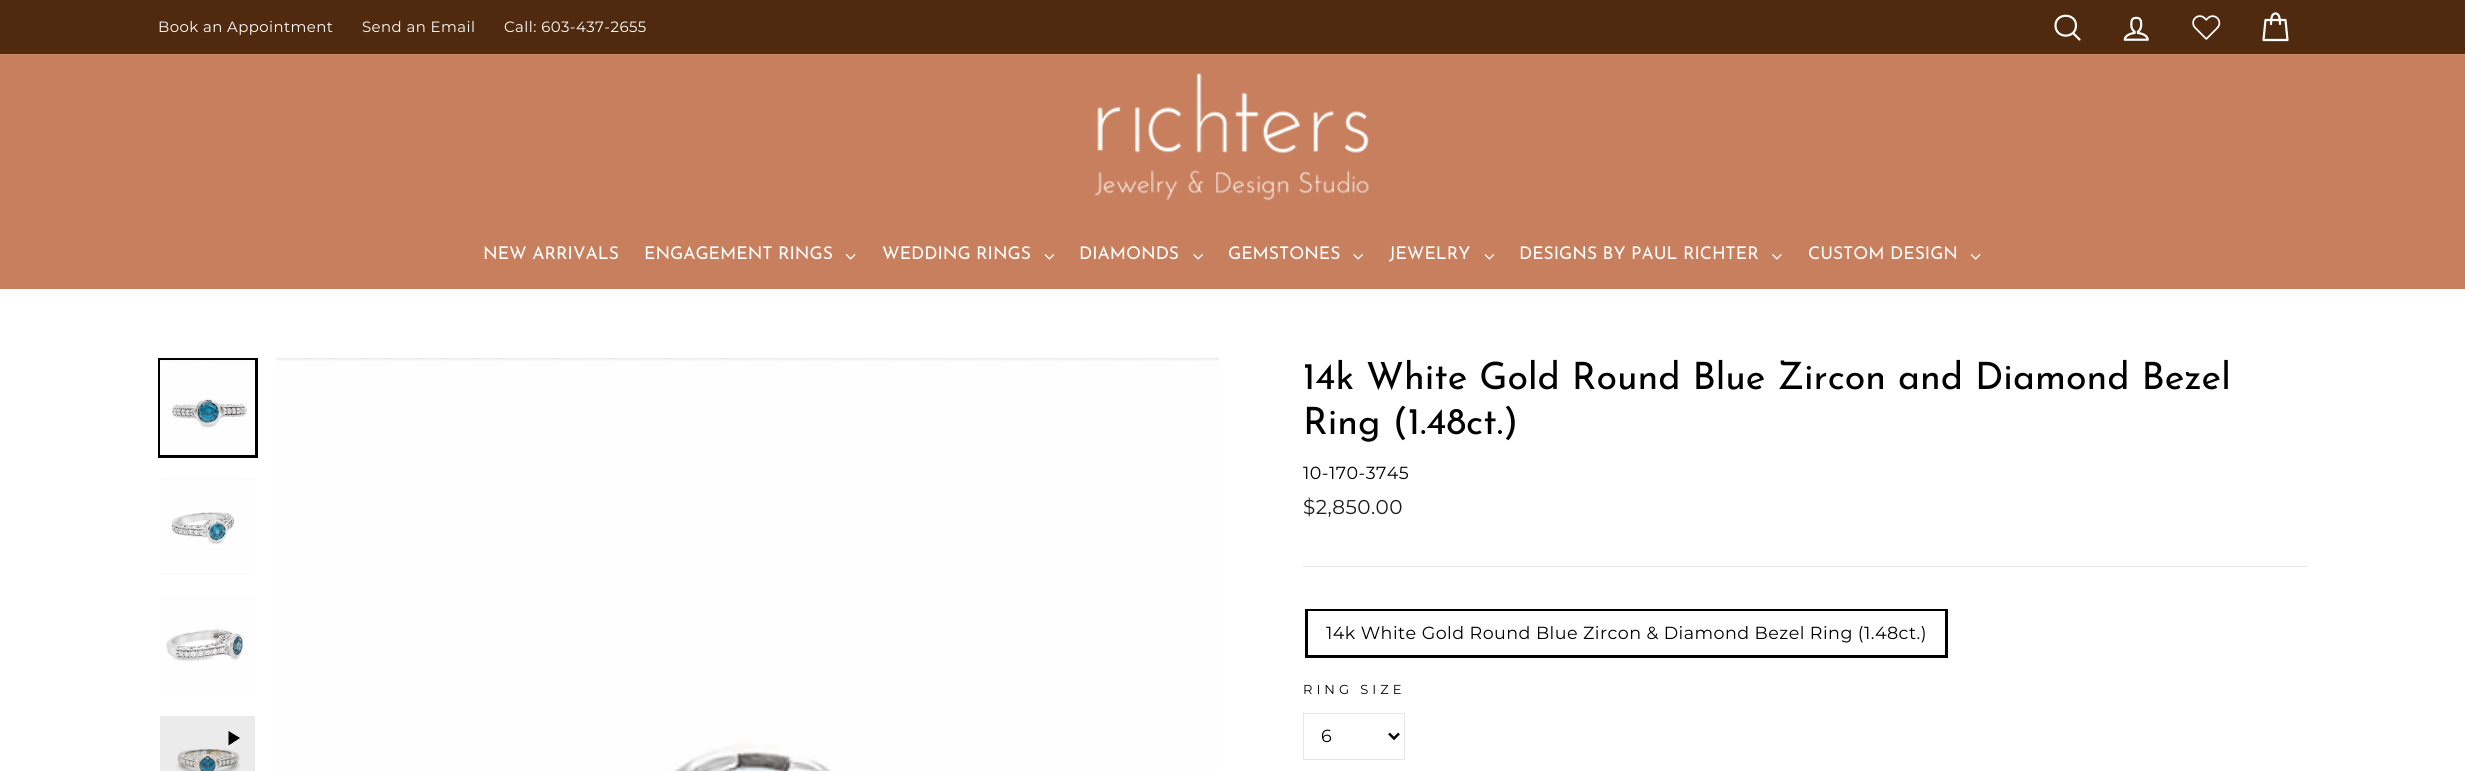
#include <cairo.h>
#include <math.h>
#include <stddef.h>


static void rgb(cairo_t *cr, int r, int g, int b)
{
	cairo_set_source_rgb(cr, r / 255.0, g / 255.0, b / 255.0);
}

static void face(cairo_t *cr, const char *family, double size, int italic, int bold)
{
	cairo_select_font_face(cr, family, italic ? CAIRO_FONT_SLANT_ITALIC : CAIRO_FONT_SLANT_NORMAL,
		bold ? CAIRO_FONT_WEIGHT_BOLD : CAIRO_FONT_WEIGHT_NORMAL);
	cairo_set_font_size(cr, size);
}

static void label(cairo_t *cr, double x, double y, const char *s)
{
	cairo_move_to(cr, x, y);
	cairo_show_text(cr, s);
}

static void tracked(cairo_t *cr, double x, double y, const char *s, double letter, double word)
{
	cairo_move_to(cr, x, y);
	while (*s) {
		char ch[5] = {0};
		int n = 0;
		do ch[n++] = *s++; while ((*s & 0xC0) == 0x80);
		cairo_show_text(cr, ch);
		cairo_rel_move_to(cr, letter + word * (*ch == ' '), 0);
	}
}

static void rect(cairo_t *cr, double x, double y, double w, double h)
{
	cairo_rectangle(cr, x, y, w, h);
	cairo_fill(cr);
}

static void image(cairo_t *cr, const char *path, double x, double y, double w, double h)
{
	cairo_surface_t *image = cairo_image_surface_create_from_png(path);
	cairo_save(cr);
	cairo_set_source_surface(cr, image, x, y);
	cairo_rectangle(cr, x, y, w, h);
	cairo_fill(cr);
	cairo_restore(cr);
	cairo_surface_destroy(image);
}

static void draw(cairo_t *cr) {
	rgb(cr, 255, 255, 255);
	cairo_paint(cr);
	rgb(cr, 79, 42, 14);
	rect(cr, 0, 0, 2465, 54);
	face(cr, "Montserrat", 14.9, 0, 0);
	rgb(cr, 255, 255, 255);
	tracked(cr, 158, 32, "Book an Appointment", 0.45, 0);
	tracked(cr, 362, 32, "Send an Email", 0.45, 0);
	tracked(cr, 504, 32, "Call: 603-437-2655", 0.45, 0);
	cairo_new_path(cr);
	cairo_move_to(cr, 2076, 25.5);
	cairo_curve_to(cr, 2076, 39, 2055.5, 39, 2055.5, 25.5);
	cairo_curve_to(cr, 2055.5, 12.5, 2076, 12.5, 2076, 25.5);
	cairo_close_path(cr);
	cairo_move_to(cr, 2079.5, 39.5);
	cairo_line_to(cr, 2073, 33);
	cairo_set_line_width(cr, 2.2);
	cairo_set_line_cap(cr, CAIRO_LINE_CAP_ROUND);
	cairo_set_line_join(cr, CAIRO_LINE_JOIN_ROUND);
	cairo_stroke(cr);
	image(cr, "image0.png", 2123, 16, 26, 25);
	image(cr, "image1.png", 2192, 15, 29, 25);
	cairo_new_path(cr);
	cairo_move_to(cr, 2271, 24);
	cairo_curve_to(cr, 2271, 15.5, 2273, 13.5, 2275.5, 13.5);
	cairo_curve_to(cr, 2278, 13.5, 2280, 15.5, 2280, 24);
	cairo_move_to(cr, 2265.5, 20);
	cairo_line_to(cr, 2285.5, 20);
	cairo_line_to(cr, 2287.5, 40);
	cairo_line_to(cr, 2263.5, 40);
	cairo_close_path(cr);
	cairo_stroke(cr);
	rgb(cr, 200, 127, 93);
	rect(cr, 0, 55, 2465, 234);
	rgb(cr, 206, 140, 109);
	rect(cr, 0, 54, 2465, 1);
	image(cr, "image2.png", 1094, 73, 275, 128);
	face(cr, "Josefin Sans", 17.5, 0, 0);
	rgb(cr, 255, 255, 255);
	label(cr, 483, 259, "NEW ARRIVALS");
	label(cr, 644, 259, "ENGAGEMENT RINGS");
	image(cr, "image3.png", 845, 254, 11, 6);
	label(cr, 882, 259, "WEDDING RINGS");
	image(cr, "image4.png", 1044, 254, 11, 6);
	label(cr, 1079, 259, "DIAMONDS");
	image(cr, "image5.png", 1193, 254, 10, 6);
	label(cr, 1228, 259, "GEMSTONES");
	image(cr, "image5.png", 1353, 254, 10, 6);
	label(cr, 1389, 259, "JEWELRY");
	image(cr, "image4.png", 1484, 254, 11, 6);
	label(cr, 1519, 259, "DESIGNS BY PAUL RICHTER");
	image(cr, "image6.png", 1772, 254, 10, 6);
	label(cr, 1808, 259, "CUSTOM DESIGN");
	image(cr, "image3.png", 1970, 254, 11, 6);
	cairo_rectangle(cr, 159.5, 359.5, 97, 97);
	rgb(cr, 0, 0, 0);
	cairo_set_line_width(cr, 3);
	cairo_set_line_cap(cr, CAIRO_LINE_CAP_BUTT);
	cairo_set_line_join(cr, CAIRO_LINE_JOIN_MITER);
	cairo_stroke(cr);
	image(cr, "image7.png", 160, 360, 95, 95);
	image(cr, "image8.png", 160, 479, 95, 95);
	image(cr, "image9.png", 160, 597, 95, 96);
	image(cr, "image10.png", 160, 716, 95, 55);
	cairo_new_path(cr);
	cairo_move_to(cr, 228.5, 731);
	cairo_line_to(cr, 228.5, 745.5);
	cairo_line_to(cr, 240, 738);
	cairo_close_path(cr);
	cairo_fill(cr);
	image(cr, "image11.png", 276, 358, 943, 413);
	face(cr, "Josefin Sans", 37.6, 0, 0);
	label(cr, 1303, 389, "14k White Gold Round Blue Zircon and Diamond Bezel");
	label(cr, 1303, 434, "Ring (1.48ct.)");
	face(cr, "Montserrat", 17.5, 0, 0);
	tracked(cr, 1303, 479, "10-170-3745", 0.45, 0);
	face(cr, "Montserrat", 20, 0, 0);
	rgb(cr, 28, 29, 29);
	tracked(cr, 1303, 514, "$2,850.00", 0.45, 0);
	rgb(cr, 230, 230, 230);
	rect(cr, 1303, 566, 1005, 1);
	cairo_rectangle(cr, 1306.5, 610.5, 640, 46);
	rgb(cr, 0, 0, 0);
	cairo_stroke(cr);
	rgb(cr, 255, 255, 255);
	rect(cr, 1308, 611, 637, 1);
	face(cr, "Montserrat", 17.5, 0, 0);
	rgb(cr, 0, 0, 0);
	tracked(cr, 1326, 639, "14k White Gold Round Blue Zircon & Diamond Bezel Ring (1.48ct.)", 0.45, 0);
	face(cr, "Montserrat", 13, 0, 0);
	tracked(cr, 1303, 694, "RING SIZE", 4, 0);
	cairo_rectangle(cr, 1303.5, 713.5, 101, 46);
	rgb(cr, 230, 230, 230);
	cairo_set_line_width(cr, 1);
	cairo_stroke(cr);
	cairo_new_path(cr);
	cairo_move_to(cr, 1389, 733.5);
	cairo_line_to(cr, 1394, 738.5);
	cairo_line_to(cr, 1399, 733.5);
	rgb(cr, 0, 0, 0);
	cairo_set_line_width(cr, 2.5);
	cairo_stroke(cr);
	face(cr, "Montserrat", 17.5, 0, 0);
	tracked(cr, 1321, 742, "6", 0.45, 0);
}

int main(void) {
	cairo_surface_t *surface = cairo_image_surface_create(CAIRO_FORMAT_RGB24, 2465, 771);
	cairo_t *cr = cairo_create(surface);
	cairo_font_options_t *options = cairo_font_options_create();
	cairo_font_options_set_hint_metrics(options, CAIRO_HINT_METRICS_OFF);
	cairo_font_options_set_hint_style(options, CAIRO_HINT_STYLE_NONE);
	cairo_set_font_options(cr, options);
	cairo_set_miter_limit(cr, 4);
	draw(cr);
	cairo_surface_write_to_png(surface, "render.png");
	cairo_font_options_destroy(options);
	cairo_destroy(cr);
	cairo_surface_destroy(surface);
	return 0;
}
